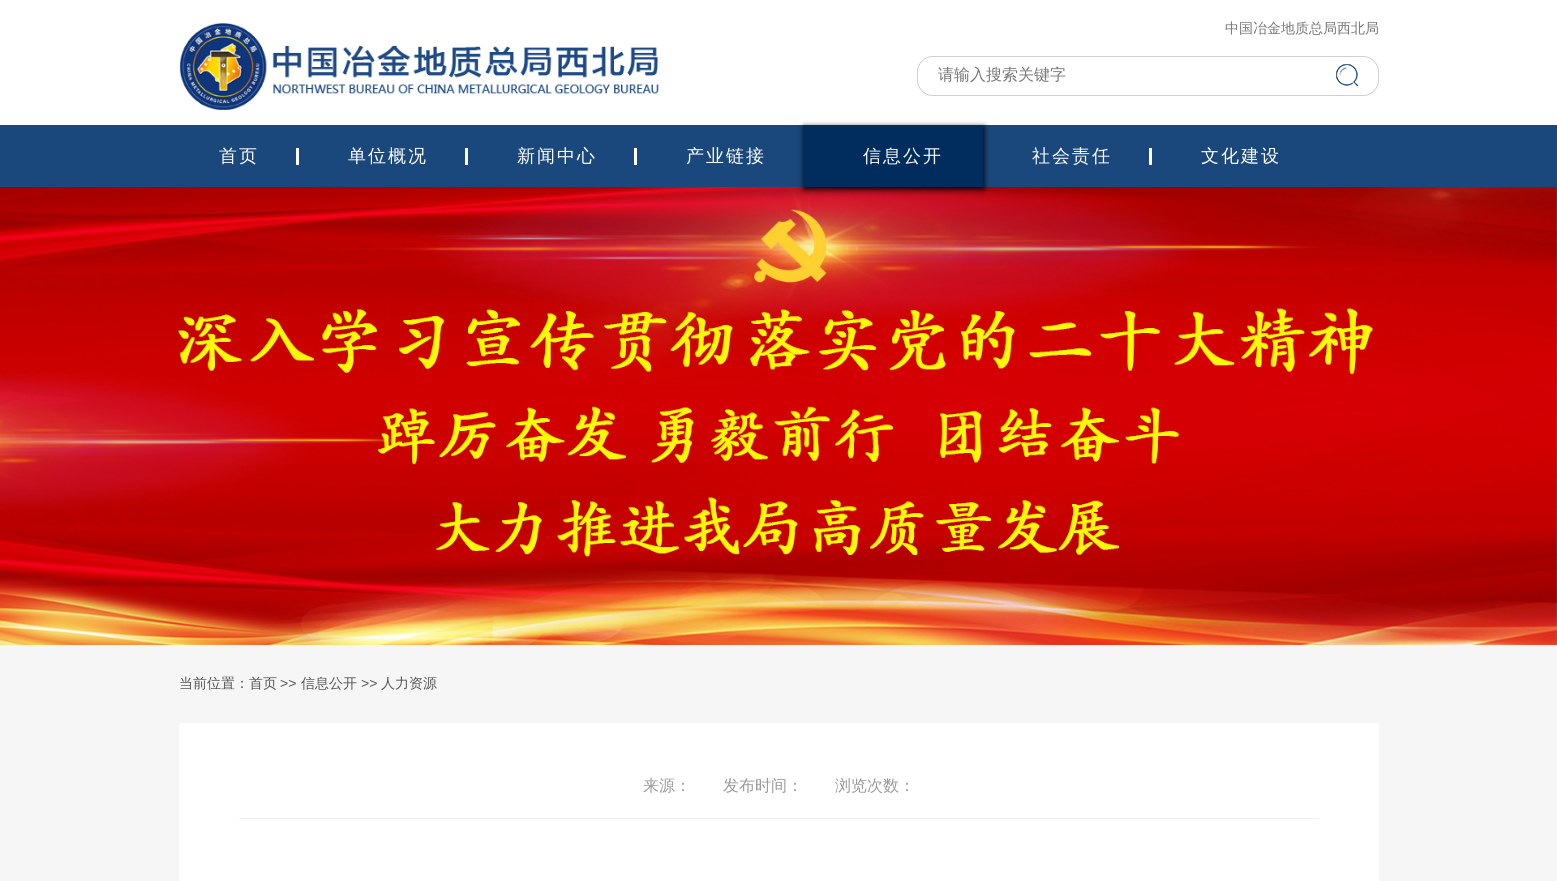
#include <cairo.h>
#include <math.h>
#include <stddef.h>


static void rgb(cairo_t *cr, int r, int g, int b)
{
	cairo_set_source_rgb(cr, r / 255.0, g / 255.0, b / 255.0);
}

static void face(cairo_t *cr, const char *family, double size, int italic, int bold)
{
	cairo_select_font_face(cr, family, italic ? CAIRO_FONT_SLANT_ITALIC : CAIRO_FONT_SLANT_NORMAL,
		bold ? CAIRO_FONT_WEIGHT_BOLD : CAIRO_FONT_WEIGHT_NORMAL);
	cairo_set_font_size(cr, size);
}

static void label(cairo_t *cr, double x, double y, const char *s)
{
	cairo_move_to(cr, x, y);
	cairo_show_text(cr, s);
}

static void tracked(cairo_t *cr, double x, double y, const char *s, double letter, double word)
{
	cairo_move_to(cr, x, y);
	while (*s) {
		char ch[5] = {0};
		int n = 0;
		do ch[n++] = *s++; while ((*s & 0xC0) == 0x80);
		cairo_show_text(cr, ch);
		cairo_rel_move_to(cr, letter + word * (*ch == ' '), 0);
	}
}

static void rect(cairo_t *cr, double x, double y, double w, double h)
{
	cairo_rectangle(cr, x, y, w, h);
	cairo_fill(cr);
}

static void rrect(cairo_t *cr, double x, double y, double w, double h, double r)
{
	cairo_new_sub_path(cr);
	cairo_arc(cr, x + w - r, y + h - r, r, 0, M_PI / 2);
	cairo_arc(cr, x + r, y + h - r, r, M_PI / 2, M_PI);
	cairo_arc(cr, x + r, y + r, r, M_PI, 1.5 * M_PI);
	cairo_arc(cr, x + w - r, y + r, r, 1.5 * M_PI, 2 * M_PI);
	cairo_close_path(cr);
}

static void soft_shadow(cairo_t *cr, double x, double y, double w, double h, double r, double blur, double alpha)
{
	cairo_push_group_with_content(cr, CAIRO_CONTENT_ALPHA);
	cairo_set_operator(cr, CAIRO_OPERATOR_SOURCE);
	for (int i = 15; i >= -15 && fmin(w, h) + blur * i / 3 > 0; i -= 2) {
		double e = blur * i / 6;
		cairo_set_source_rgba(cr, 0, 0, 0, alpha * erfc((i - 1) / 8.5) / 2);
		rrect(cr, x - e, y - e, w + 2 * e, h + 2 * e, fmax(0, fmin(r + e + blur * .6, fmin(w, h) / 2 + e)));
		cairo_fill(cr);
	}
	cairo_pattern_t *soft = cairo_pop_group(cr);
	cairo_mask(cr, soft);
	cairo_pattern_destroy(soft);
}

static void image(cairo_t *cr, const char *path, double x, double y, double w, double h)
{
	cairo_surface_t *image = cairo_image_surface_create_from_png(path);
	cairo_save(cr);
	cairo_set_source_surface(cr, image, x, y);
	cairo_rectangle(cr, x, y, w, h);
	cairo_fill(cr);
	cairo_restore(cr);
	cairo_surface_destroy(image);
}

static void draw(cairo_t *cr) {
	rgb(cr, 246, 246, 246);
	cairo_paint(cr);
	rgb(cr, 255, 255, 255);
	rect(cr, 0, 0, 1557, 125);
	image(cr, "image0.png", 179, 23, 480, 87);
	face(cr, "WenQuanYi Zen Hei Medium", 14, 0, 0);
	rgb(cr, 119, 119, 119);
	label(cr, 1225, 33, "中国冶金地质总局西北局");
	rrect(cr, 917.5, 56.5, 461, 39, 15.5);
	rgb(cr, 208, 208, 208);
	cairo_set_line_width(cr, 1);
	cairo_stroke(cr);
	face(cr, "WenQuanYi Zen Hei Medium", 16, 0, 0);
	rgb(cr, 119, 119, 119);
	label(cr, 938, 80, "请输入搜索关键字");
	image(cr, "image1.png", 1336, 64, 22, 22);
	rgb(cr, 26, 72, 124);
	rect(cr, 0, 125, 1557, 62);
	rgb(cr, 255, 255, 255);
	rect(cr, 296, 148, 3, 17);
	face(cr, "WenQuanYi Zen Hei Medium", 18, 0, 0);
	tracked(cr, 219, 162, "首页", 2, 0);
	rect(cr, 465, 148, 3, 17);
	tracked(cr, 348, 162, "单位概况", 2, 0);
	rect(cr, 634, 148, 3, 17);
	tracked(cr, 517, 162, "新闻中心", 2, 0);
	tracked(cr, 686, 162, "产业链接", 2, 0);
	image(cr, "image2.png", 0, 187, 1557, 458);
	rgb(cr, 6, 0, 1);
	soft_shadow(cr, 804, 127, 180, 62, 0, 3, 1);
	rgb(cr, 0, 45, 94);
	rect(cr, 803, 125, 180, 62);
	rgb(cr, 255, 255, 255);
	tracked(cr, 863, 162, "信息公开", 2, 0);
	rect(cr, 1149, 148, 3, 17);
	tracked(cr, 1032, 162, "社会责任", 2, 0);
	tracked(cr, 1201, 162, "文化建设", 2, 0);
	face(cr, "WenQuanYi Zen Hei Medium", 14, 0, 0);
	rgb(cr, 85, 85, 85);
	label(cr, 179, 688, "当前位置：首页");
	face(cr, "Liberation Sans", 14, 0, 0);
	label(cr, 280, 688, ">>");
	face(cr, "WenQuanYi Zen Hei Medium", 14, 0, 0);
	label(cr, 301, 688, "信息公开");
	face(cr, "Liberation Sans", 14, 0, 0);
	label(cr, 361, 688, ">>");
	face(cr, "WenQuanYi Zen Hei Medium", 14, 0, 0);
	label(cr, 381, 688, "人力资源");
	rgb(cr, 255, 255, 255);
	rect(cr, 179, 723, 1200, 158);
	rgb(cr, 240, 240, 240);
	rect(cr, 239, 818, 1080, 1);
	face(cr, "WenQuanYi Zen Hei Medium", 16, 0, 0);
	rgb(cr, 154, 154, 154);
	label(cr, 643, 791, "来源：　　发布时间：　　浏览次数：");
}

int main(void) {
	cairo_surface_t *surface = cairo_image_surface_create(CAIRO_FORMAT_RGB24, 1557, 881);
	cairo_t *cr = cairo_create(surface);
	cairo_font_options_t *options = cairo_font_options_create();
	cairo_font_options_set_hint_metrics(options, CAIRO_HINT_METRICS_OFF);
	cairo_font_options_set_hint_style(options, CAIRO_HINT_STYLE_NONE);
	cairo_set_font_options(cr, options);
	cairo_set_miter_limit(cr, 4);
	draw(cr);
	cairo_surface_write_to_png(surface, "render.png");
	cairo_font_options_destroy(options);
	cairo_destroy(cr);
	cairo_surface_destroy(surface);
	return 0;
}
